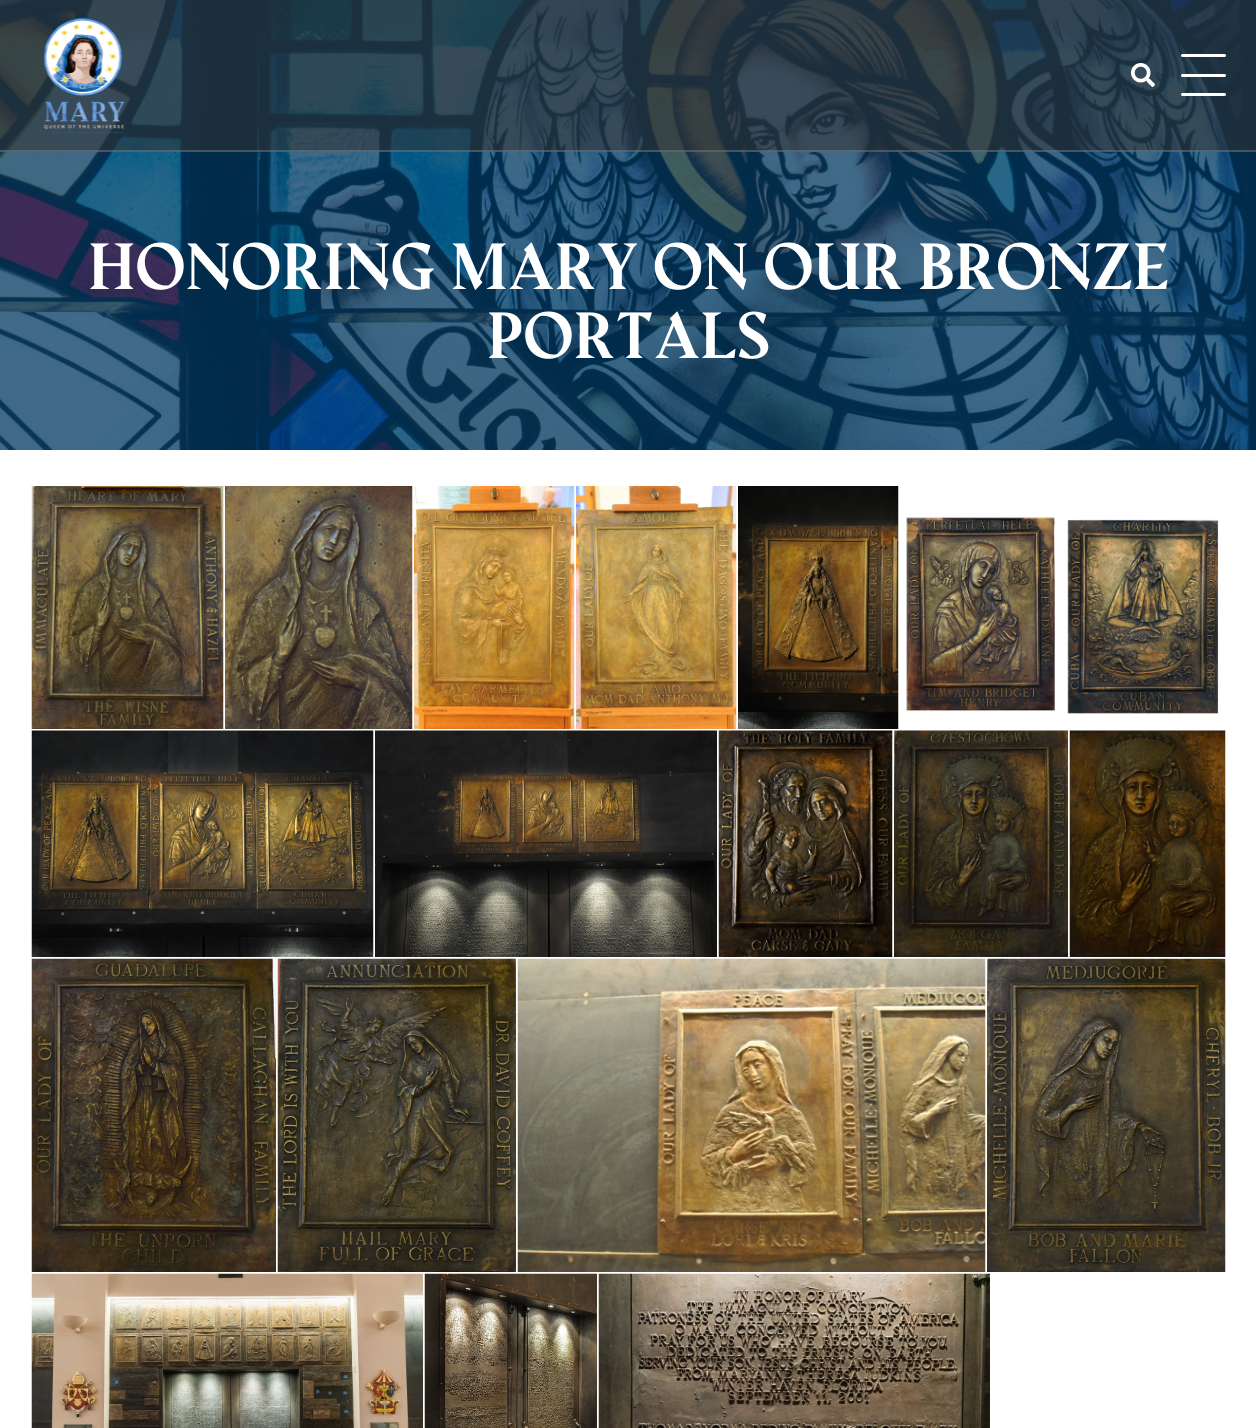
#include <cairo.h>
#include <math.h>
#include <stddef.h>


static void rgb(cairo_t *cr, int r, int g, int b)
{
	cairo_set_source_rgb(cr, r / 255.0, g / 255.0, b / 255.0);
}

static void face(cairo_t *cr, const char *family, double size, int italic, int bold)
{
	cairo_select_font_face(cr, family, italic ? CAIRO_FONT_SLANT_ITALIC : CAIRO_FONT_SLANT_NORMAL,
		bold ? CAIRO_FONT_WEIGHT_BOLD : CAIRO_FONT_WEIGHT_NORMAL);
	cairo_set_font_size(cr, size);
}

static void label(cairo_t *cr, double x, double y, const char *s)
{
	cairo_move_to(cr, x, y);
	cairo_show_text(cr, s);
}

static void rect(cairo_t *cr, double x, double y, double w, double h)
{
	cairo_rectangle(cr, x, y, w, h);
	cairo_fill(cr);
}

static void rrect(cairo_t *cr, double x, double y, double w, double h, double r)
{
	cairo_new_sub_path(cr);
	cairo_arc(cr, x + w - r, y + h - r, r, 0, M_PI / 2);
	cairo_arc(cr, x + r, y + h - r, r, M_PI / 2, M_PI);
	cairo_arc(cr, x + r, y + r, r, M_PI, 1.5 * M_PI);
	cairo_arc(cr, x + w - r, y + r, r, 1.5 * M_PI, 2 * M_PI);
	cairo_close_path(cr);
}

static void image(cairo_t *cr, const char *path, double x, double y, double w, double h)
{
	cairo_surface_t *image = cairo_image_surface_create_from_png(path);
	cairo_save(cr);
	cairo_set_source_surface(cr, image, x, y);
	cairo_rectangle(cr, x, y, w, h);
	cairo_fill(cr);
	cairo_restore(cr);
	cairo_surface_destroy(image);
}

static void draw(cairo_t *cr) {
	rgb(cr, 255, 255, 255);
	cairo_paint(cr);
	image(cr, "image2.png", 0, 0, 1256, 450);
	cairo_set_source_rgba(cr, 0.196, 0.196, 0.196, 0.55);
	rect(cr, 0, 0, 1256, 150);
	image(cr, "image0.png", 43, 17, 82, 117);
	image(cr, "image1.png", 1131, 63, 24, 24);
	rgb(cr, 255, 255, 255);
	rrect(cr, 1181, 54, 45, 3, 1.5);
	cairo_fill(cr);
	rrect(cr, 1181, 74, 45, 3, 1.5);
	cairo_fill(cr);
	rrect(cr, 1181, 93, 45, 3, 1.5);
	cairo_fill(cr);
	cairo_set_source_rgba(cr, 0.4, 0.4, 0.4, 0.7);
	rect(cr, 0, 150, 1256, 2);
	face(cr, "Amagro", 60, 0, 1);
	rgb(cr, 255, 255, 255);
	label(cr, 88, 289, "Honoring Mary on our Bronze");
	label(cr, 487, 358, "Portals");
	image(cr, "image3.png", 31, 486, 193, 243);
	image(cr, "image4.png", 225, 486, 188, 243);
	image(cr, "image5.png", 414, 486, 161, 243);
	image(cr, "image6.png", 576, 486, 161, 243);
	image(cr, "image7.png", 738, 486, 161, 243);
	image(cr, "image8.png", 906, 516, 149, 196);
	image(cr, "image9.png", 1067, 519, 152, 195);
	image(cr, "image10.png", 31, 730, 343, 227);
	image(cr, "image11.png", 375, 730, 342, 227);
	image(cr, "image12.png", 718, 730, 175, 227);
	image(cr, "image13.png", 894, 730, 174, 227);
	image(cr, "image14.png", 1069, 730, 157, 227);
	image(cr, "image15.png", 31, 958, 245, 314);
	image(cr, "image16.png", 277, 958, 239, 314);
	image(cr, "image17.png", 517, 958, 469, 314);
	image(cr, "image18.png", 987, 958, 239, 314);
	image(cr, "image19.png", 31, 1273, 392, 155);
	image(cr, "image20.png", 424, 1273, 173, 155);
	image(cr, "image21.png", 598, 1273, 392, 155);
}

int main(void) {
	cairo_surface_t *surface = cairo_image_surface_create(CAIRO_FORMAT_RGB24, 1256, 1428);
	cairo_t *cr = cairo_create(surface);
	cairo_font_options_t *options = cairo_font_options_create();
	cairo_font_options_set_hint_metrics(options, CAIRO_HINT_METRICS_OFF);
	cairo_font_options_set_hint_style(options, CAIRO_HINT_STYLE_NONE);
	cairo_set_font_options(cr, options);
	cairo_set_miter_limit(cr, 4);
	draw(cr);
	cairo_surface_write_to_png(surface, "render.png");
	cairo_font_options_destroy(options);
	cairo_destroy(cr);
	cairo_surface_destroy(surface);
	return 0;
}
